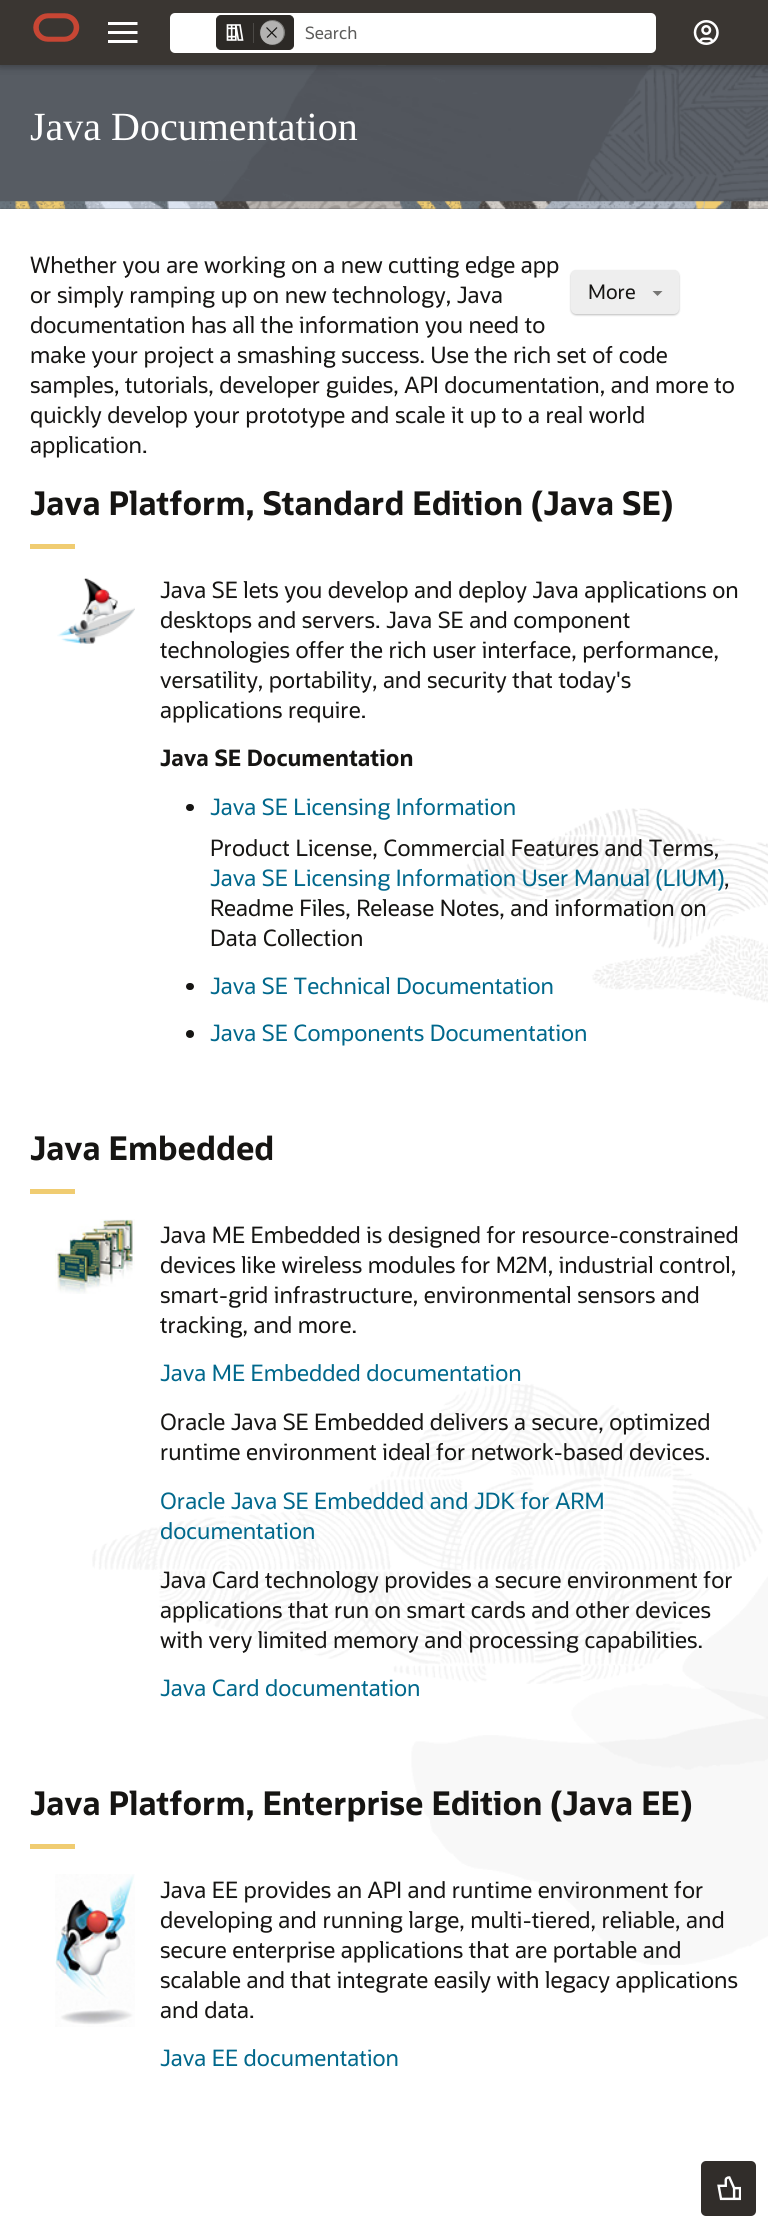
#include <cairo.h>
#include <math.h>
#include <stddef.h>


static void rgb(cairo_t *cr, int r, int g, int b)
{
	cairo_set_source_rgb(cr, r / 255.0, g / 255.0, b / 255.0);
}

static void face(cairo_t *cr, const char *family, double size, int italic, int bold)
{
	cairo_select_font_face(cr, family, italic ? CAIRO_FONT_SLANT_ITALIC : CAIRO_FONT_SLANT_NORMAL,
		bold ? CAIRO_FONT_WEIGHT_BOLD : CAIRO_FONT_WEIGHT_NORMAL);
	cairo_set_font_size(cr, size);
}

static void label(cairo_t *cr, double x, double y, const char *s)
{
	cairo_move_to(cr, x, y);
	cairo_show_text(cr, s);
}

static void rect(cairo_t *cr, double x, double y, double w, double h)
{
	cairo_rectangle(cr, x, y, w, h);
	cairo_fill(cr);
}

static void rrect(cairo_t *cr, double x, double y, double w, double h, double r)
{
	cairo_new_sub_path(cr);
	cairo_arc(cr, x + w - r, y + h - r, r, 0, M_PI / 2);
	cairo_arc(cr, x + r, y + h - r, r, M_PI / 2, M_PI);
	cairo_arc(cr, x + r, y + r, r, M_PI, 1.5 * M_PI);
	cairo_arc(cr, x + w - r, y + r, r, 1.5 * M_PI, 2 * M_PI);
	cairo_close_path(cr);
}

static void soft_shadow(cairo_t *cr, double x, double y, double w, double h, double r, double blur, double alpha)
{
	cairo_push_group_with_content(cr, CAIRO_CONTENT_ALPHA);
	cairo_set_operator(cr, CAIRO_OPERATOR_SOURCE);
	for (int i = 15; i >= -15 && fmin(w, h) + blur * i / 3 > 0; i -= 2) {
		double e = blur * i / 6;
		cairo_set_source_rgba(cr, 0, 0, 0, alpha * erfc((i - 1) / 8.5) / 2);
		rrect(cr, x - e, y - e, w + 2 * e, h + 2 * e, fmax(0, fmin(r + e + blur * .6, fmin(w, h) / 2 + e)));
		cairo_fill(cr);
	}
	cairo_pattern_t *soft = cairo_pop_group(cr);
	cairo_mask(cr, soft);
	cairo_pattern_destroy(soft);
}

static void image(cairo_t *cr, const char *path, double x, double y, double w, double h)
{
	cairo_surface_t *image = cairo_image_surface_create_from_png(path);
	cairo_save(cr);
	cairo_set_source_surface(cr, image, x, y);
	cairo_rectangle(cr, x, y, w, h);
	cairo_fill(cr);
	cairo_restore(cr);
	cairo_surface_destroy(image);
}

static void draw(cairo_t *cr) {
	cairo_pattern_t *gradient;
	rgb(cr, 58, 54, 50);
	cairo_paint(cr);
	image(cr, "image3.png", 0, 65, 768, 144);
	cairo_save(cr);
	cairo_rectangle(cr, 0, 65, 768, 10);
	cairo_clip(cr);
	rgb(cr, 0, 0, 0);
	soft_shadow(cr, 0, 3, 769, 65, 0, 6, 0.15);
	cairo_restore(cr);
	image(cr, "image0.png", 33, 13, 47, 29);
	cairo_save(cr);
	cairo_rectangle(cr, 108, 18, 30, 30);
	cairo_clip(cr);
	cairo_new_path(cr);
	cairo_move_to(cr, 107.5, 23.5);
	cairo_line_to(cr, 137.5, 23.5);
	cairo_move_to(cr, 107.5, 32.5);
	cairo_line_to(cr, 137.5, 32.5);
	cairo_move_to(cr, 107.5, 41.5);
	cairo_line_to(cr, 137.5, 41.5);
	rgb(cr, 255, 255, 255);
	cairo_set_line_width(cr, 3);
	cairo_stroke(cr);
	cairo_restore(cr);
	rgb(cr, 255, 255, 255);
	rrect(cr, 170, 13, 486, 40, 5);
	cairo_fill(cr);
	rgb(cr, 44, 41, 38);
	rrect(cr, 216.5, 15.5, 77, 34, 4.5);
	cairo_fill_preserve(cr);
	cairo_set_line_width(cr, 1);
	cairo_stroke(cr);
	image(cr, "image1.png", 226, 24, 18, 17);
	rgb(cr, 75, 73, 70);
	rect(cr, 253, 23, 1, 20);
	rgb(cr, 128, 127, 125);
	cairo_arc(cr, 272.5, 32.5, 13, 0, 2 * M_PI);
	cairo_fill_preserve(cr);
	rgb(cr, 44, 41, 38);
	cairo_stroke(cr);
	cairo_set_source_rgba(cr, 1, 1, 1, 0.4);
	cairo_new_path(cr);
	cairo_move_to(cr, 272, 21);
	cairo_curve_to(cr, 256.5, 21, 256.5, 44.5, 272, 44.5);
	cairo_curve_to(cr, 287.5, 44.5, 287.5, 21, 272, 21);
	cairo_close_path(cr);
	cairo_fill(cr);
	cairo_new_path(cr);
	cairo_move_to(cr, 266.5, 27.5);
	cairo_line_to(cr, 276.5, 37.5);
	cairo_move_to(cr, 277, 27.5);
	cairo_line_to(cr, 267, 37.5);
	rgb(cr, 22, 21, 19);
	cairo_set_line_width(cr, 1.2);
	cairo_stroke(cr);
	face(cr, "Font", 17, 0, 0);
	rgb(cr, 92, 91, 90);
	label(cr, 305, 39, "Search");
	image(cr, "image2.png", 693, 20, 26, 25);
	gradient = cairo_pattern_create_linear(384, 65, 384, 71);
	cairo_pattern_add_color_stop_rgba(gradient, 0, 0, 0, 0, 0.12);
	cairo_pattern_add_color_stop_rgba(gradient, 1, 0, 0, 0, 0);
	cairo_set_source(cr, gradient);
	cairo_pattern_destroy(gradient);
	rect(cr, 0, 65, 768, 5);
	face(cr, "Liberation Serif", 40, 0, 0);
	rgb(cr, 255, 255, 255);
	label(cr, 30, 140, "Java Documentation");
	image(cr, "image4.png", 0, 201, 768, 8);
	rect(cr, 0, 209, 768, 2019);
	image(cr, "image5.png", 92, 808, 676, 1157);
	face(cr, "Font", 22.5, 0, 0);
	rgb(cr, 22, 21, 19);
	label(cr, 30, 273, "Whether you are working on a new cutting edge app");
	label(cr, 30, 303, "or simply ramping up on new technology, Java");
	label(cr, 30, 333, "documentation has all the information you need to");
	label(cr, 30, 363, "make your project a smashing success. Use the rich set of code");
	label(cr, 30, 393, "samples, tutorials, developer guides, API documentation, and more to");
	label(cr, 30, 423, "quickly develop your prototype and scale it up to a real world");
	label(cr, 30, 453, "application.");
	rgb(cr, 29, 29, 29);
	soft_shadow(cr, 571, 271, 108, 44, 5, 1, 0.3);
	rgb(cr, 238, 238, 238);
	rrect(cr, 571, 270, 108, 44, 5);
	cairo_fill(cr);
	face(cr, "Font", 20, 0, 0);
	rgb(cr, 22, 21, 19);
	label(cr, 588, 299, "More");
	rgb(cr, 119, 118, 116);
	cairo_new_path(cr);
	cairo_move_to(cr, 652.5, 291);
	cairo_line_to(cr, 662.5, 291);
	cairo_line_to(cr, 657.5, 296);
	cairo_close_path(cr);
	cairo_fill(cr);
	face(cr, "Font", 32.5, 0, 1);
	rgb(cr, 22, 21, 19);
	label(cr, 30, 515, "Java Platform, Standard Edition (Java SE)");
	rgb(cr, 240, 204, 113);
	rect(cr, 30, 544, 45, 5);
	image(cr, "image6.png", 57, 578, 78, 66);
	face(cr, "Font", 22.5, 0, 0);
	rgb(cr, 22, 21, 19);
	label(cr, 160, 598, "Java SE lets you develop and deploy Java applications on");
	label(cr, 160, 628, "desktops and servers. Java SE and component");
	label(cr, 160, 658, "technologies offer the rich user interface, performance,");
	label(cr, 160, 688, "versatility, portability, and security that today's");
	label(cr, 160, 718, "applications require.");
	face(cr, "Font", 22.5, 0, 1);
	label(cr, 160, 766, "Java SE Documentation");
	rrect(cr, 186, 804, 8, 7, 3.5);
	cairo_fill(cr);
	face(cr, "Font", 22.5, 0, 0);
	rgb(cr, 0, 104, 140);
	label(cr, 210, 815, "Java SE Licensing Information");
	rgb(cr, 22, 21, 19);
	label(cr, 210, 856, "Product License, Commercial Features and Terms,");
	rgb(cr, 0, 104, 140);
	label(cr, 210, 886, "Java SE Licensing Information User Manual (LIUM)");
	rgb(cr, 22, 21, 19);
	label(cr, 724, 886, ",");
	label(cr, 210, 916, "Readme Files, Release Notes, and information on");
	label(cr, 210, 946, "Data Collection");
	rrect(cr, 186, 983, 8, 7, 3.5);
	cairo_fill(cr);
	rgb(cr, 0, 104, 140);
	label(cr, 210, 994, "Java SE Technical Documentation");
	rgb(cr, 22, 21, 19);
	cairo_new_path(cr);
	cairo_arc(cr, 190, 1034, 4, 0, 2 * M_PI);
	cairo_fill(cr);
	rgb(cr, 0, 104, 140);
	label(cr, 210, 1041, "Java SE Components Documentation");
	face(cr, "Font", 32.5, 0, 1);
	rgb(cr, 22, 21, 19);
	label(cr, 30, 1160, "Java Embedded");
	rgb(cr, 240, 204, 113);
	rect(cr, 30, 1189, 45, 5);
	image(cr, "image7.png", 55, 1219, 80, 75);
	face(cr, "Font", 22.5, 0, 0);
	rgb(cr, 22, 21, 19);
	label(cr, 160, 1243, "Java ME Embedded is designed for resource-constrained");
	label(cr, 160, 1273, "devices like wireless modules for M2M, industrial control,");
	label(cr, 160, 1303, "smart-grid infrastructure, environmental sensors and");
	label(cr, 160, 1333, "tracking, and more.");
	rgb(cr, 0, 104, 140);
	label(cr, 160, 1381, "Java ME Embedded documentation");
	rgb(cr, 22, 21, 19);
	label(cr, 160, 1430, "Oracle Java SE Embedded delivers a secure, optimized");
	label(cr, 160, 1460, "runtime environment ideal for network-based devices.");
	rgb(cr, 0, 104, 140);
	label(cr, 160, 1509, "Oracle Java SE Embedded and JDK for ARM");
	label(cr, 160, 1539, "documentation");
	rgb(cr, 22, 21, 19);
	label(cr, 160, 1588, "Java Card technology provides a secure environment for");
	label(cr, 160, 1618, "applications that run on smart cards and other devices");
	label(cr, 160, 1648, "with very limited memory and processing capabilities.");
	rgb(cr, 0, 104, 140);
	label(cr, 160, 1696, "Java Card documentation");
	face(cr, "Font", 32.5, 0, 1);
	rgb(cr, 22, 21, 19);
	label(cr, 30, 1815, "Java Platform, Enterprise Edition (Java EE)");
	rgb(cr, 240, 204, 113);
	rect(cr, 30, 1844, 45, 5);
	image(cr, "image8.png", 55, 1874, 80, 153);
	face(cr, "Font", 22.5, 0, 0);
	rgb(cr, 22, 21, 19);
	label(cr, 160, 1898, "Java EE provides an API and runtime environment for");
	label(cr, 160, 1928, "developing and running large, multi-tiered, reliable, and");
	label(cr, 160, 1958, "secure enterprise applications that are portable and");
	label(cr, 160, 1988, "scalable and that integrate easily with legacy applications");
	label(cr, 160, 2018, "and data.");
	rgb(cr, 0, 104, 140);
	label(cr, 160, 2066, "Java EE documentation");
	rgb(cr, 49, 45, 42);
	rrect(cr, 701, 2161, 55, 55, 5);
	cairo_fill(cr);
	image(cr, "image9.png", 717, 2176, 24, 25);
}

int main(void) {
	cairo_surface_t *surface = cairo_image_surface_create(CAIRO_FORMAT_RGB24, 768, 2228);
	cairo_t *cr = cairo_create(surface);
	cairo_font_options_t *options = cairo_font_options_create();
	cairo_font_options_set_hint_metrics(options, CAIRO_HINT_METRICS_OFF);
	cairo_font_options_set_hint_style(options, CAIRO_HINT_STYLE_NONE);
	cairo_set_font_options(cr, options);
	cairo_set_miter_limit(cr, 4);
	draw(cr);
	cairo_surface_write_to_png(surface, "render.png");
	cairo_font_options_destroy(options);
	cairo_destroy(cr);
	cairo_surface_destroy(surface);
	return 0;
}
